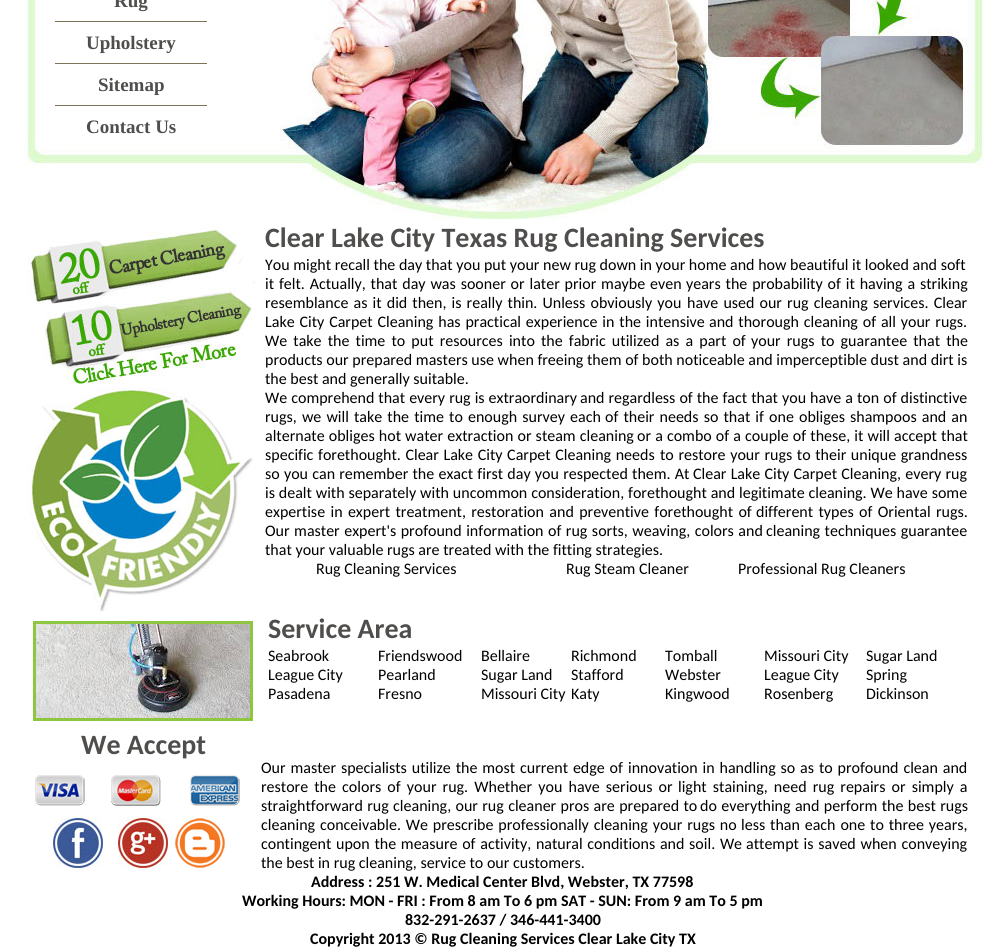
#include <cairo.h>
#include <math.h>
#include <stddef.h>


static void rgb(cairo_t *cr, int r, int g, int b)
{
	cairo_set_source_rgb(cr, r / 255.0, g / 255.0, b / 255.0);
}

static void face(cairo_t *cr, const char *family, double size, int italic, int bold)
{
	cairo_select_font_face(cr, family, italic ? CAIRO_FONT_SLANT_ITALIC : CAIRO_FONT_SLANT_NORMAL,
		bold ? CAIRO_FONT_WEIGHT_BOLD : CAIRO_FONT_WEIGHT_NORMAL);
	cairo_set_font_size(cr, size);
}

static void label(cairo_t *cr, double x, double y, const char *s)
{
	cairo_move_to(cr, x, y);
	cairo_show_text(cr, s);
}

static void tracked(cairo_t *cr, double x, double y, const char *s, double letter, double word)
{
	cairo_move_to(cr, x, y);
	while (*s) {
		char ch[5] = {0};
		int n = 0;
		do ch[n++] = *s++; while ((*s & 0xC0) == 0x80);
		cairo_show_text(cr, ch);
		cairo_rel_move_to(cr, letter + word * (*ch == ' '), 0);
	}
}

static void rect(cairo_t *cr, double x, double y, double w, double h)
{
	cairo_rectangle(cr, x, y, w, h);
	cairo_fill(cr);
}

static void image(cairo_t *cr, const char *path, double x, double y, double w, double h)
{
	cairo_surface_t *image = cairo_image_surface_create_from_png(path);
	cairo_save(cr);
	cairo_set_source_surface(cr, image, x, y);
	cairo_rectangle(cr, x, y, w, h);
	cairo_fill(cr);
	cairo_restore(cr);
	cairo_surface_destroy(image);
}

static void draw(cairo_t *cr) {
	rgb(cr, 255, 255, 255);
	cairo_paint(cr);
	image(cr, "image0.png", 24, 0, 960, 219);
	rgb(cr, 126, 115, 87);
	rect(cr, 55, 21, 152, 1);
	face(cr, "Liberation Serif", 19, 0, 1);
	rgb(cr, 79, 78, 76);
	label(cr, 114, 7, "Rug");
	rgb(cr, 126, 115, 87);
	rect(cr, 55, 63, 152, 1);
	rgb(cr, 79, 78, 76);
	label(cr, 86, 49, "Upholstery");
	rgb(cr, 126, 115, 87);
	rect(cr, 55, 105, 152, 1);
	rgb(cr, 79, 78, 76);
	label(cr, 98, 91, "Sitemap");
	label(cr, 86, 133, "Contact Us");
	image(cr, "image1.png", 28, 224, 227, 160);
	face(cr, "Carlito", 28, 0, 1);
	label(cr, 265, 247, "Clear Lake City Texas Rug Cleaning Services");
	face(cr, "Carlito", 16, 0, 0);
	rgb(cr, 0, 0, 0);
	label(cr, 265, 270, "You might recall the day that you put your new rug down in your home and how beautiful it looked and soft");
	tracked(cr, 265, 289, "it felt. Actually, that day was sooner or later prior maybe even", 0, 1.25);
	tracked(cr, 686, 289, "years the probability of it having a striking", 0, 1.25);
	tracked(cr, 265, 308, "resemblance as it did then, is really thin. Unless obviously you", 0, 1.5);
	tracked(cr, 687, 308, "have used our rug cleaning services. Clear", 0, 1.5);
	tracked(cr, 265, 327, "Lake City Carpet Cleaning has practical experience in the intensive", 0, 1.25);
	tracked(cr, 709, 327, "and thorough cleaning of all your rugs.", 0, 1.25);
	tracked(cr, 265, 346, "We take the time to put resources into the fabric utilized as a part of", 0, 2.5);
	tracked(cr, 751, 346, "your rugs to guarantee that the", 0, 2.5);
	label(cr, 265, 365, "products our prepared masters use when freeing them of both noticeable and imperceptible dust and dirt is");
	label(cr, 265, 384, "the best and generally suitable.");
	image(cr, "image2.png", 28, 388, 225, 223);
	tracked(cr, 265, 403, "We comprehend that every rug is extraordinary", 0, 0.4);
	tracked(cr, 580, 403, "and regardless of the fact that you have a ton of distinctive", 0, 0.4);
	tracked(cr, 265, 422, "rugs, we will take the time to enough survey each", 0, 1.5);
	tracked(cr, 605, 422, "of their needs so that if one obliges shampoos and an", 0, 1.5);
	tracked(cr, 265, 441, "alternate obliges hot water extraction or steam cleaning", 0, 0.5);
	tracked(cr, 637, 441, "or a combo of a couple of these, it will accept that", 0, 0.5);
	tracked(cr, 265, 460, "specific forethought. Clear Lake City Carpet Cleaning needs", 0, 1);
	tracked(cr, 660, 460, "to restore your rugs to their unique grandness", 0, 1);
	tracked(cr, 265, 479, "so you can remember the exact first day you respected them. At", 0, 0.6);
	tracked(cr, 693, 479, "Clear Lake City Carpet Cleaning, every rug", 0, 0.6);
	tracked(cr, 265, 498, "is dealt with separately with uncommon consideration, forethought and", 0, 0.25);
	tracked(cr, 739, 498, "legitimate cleaning. We have some", 0, 0.25);
	tracked(cr, 265, 517, "expertise in expert treatment, restoration and preventive forethought of", 0, 1.75);
	tracked(cr, 756, 517, "different types of Oriental rugs.", 0, 1.75);
	tracked(cr, 265, 536, "Our master expert's profound information of rug sorts, weaving, colors and", 0, 0.9);
	tracked(cr, 766, 536, "cleaning techniques guarantee", 0, 0.9);
	label(cr, 265, 555, "that your valuable rugs are treated with the fitting strategies.");
	label(cr, 316, 574, "Rug Cleaning Services");
	label(cr, 566, 574, "Rug Steam Cleaner");
	label(cr, 738, 574, "Professional Rug Cleaners");
	image(cr, "image3.png", 33, 621, 220, 100);
	face(cr, "Carlito", 28, 0, 1);
	rgb(cr, 79, 78, 76);
	label(cr, 268, 638, "Service Area");
	face(cr, "Carlito", 16, 0, 0);
	rgb(cr, 0, 0, 0);
	label(cr, 268, 661, "Seabrook");
	label(cr, 268, 680, "League City");
	label(cr, 268, 699, "Pasadena");
	label(cr, 378, 661, "Friendswood");
	label(cr, 378, 680, "Pearland");
	label(cr, 378, 699, "Fresno");
	label(cr, 481, 661, "Bellaire");
	label(cr, 481, 680, "Sugar Land");
	label(cr, 481, 699, "Missouri City");
	label(cr, 571, 661, "Richmond");
	label(cr, 571, 680, "Stafford");
	label(cr, 571, 699, "Katy");
	label(cr, 665, 661, "Tomball");
	label(cr, 665, 680, "Webster");
	label(cr, 665, 699, "Kingwood");
	label(cr, 764, 661, "Missouri City");
	label(cr, 764, 680, "League City");
	label(cr, 764, 699, "Rosenberg");
	label(cr, 866, 661, "Sugar Land");
	label(cr, 866, 680, "Spring");
	label(cr, 866, 699, "Dickinson");
	face(cr, "Carlito", 28, 0, 1);
	rgb(cr, 79, 78, 76);
	label(cr, 81, 754, "We Accept");
	image(cr, "image4.png", 35, 775, 50, 31);
	image(cr, "image5.png", 111, 775, 50, 31);
	image(cr, "image6.png", 190, 775, 50, 31);
	image(cr, "image7.png", 53, 818, 50, 50);
	image(cr, "image8.png", 118, 818, 50, 50);
	image(cr, "image9.png", 175, 818, 50, 50);
	face(cr, "Carlito", 16, 0, 0);
	rgb(cr, 0, 0, 0);
	tracked(cr, 261, 773, "Our master specialists utilize the most current edge of", 0, 1.25);
	tracked(cr, 628, 773, "innovation in handling so as to profound clean and", 0, 1.25);
	tracked(cr, 261, 792, "restore the colors of your rug. Whether you have serious or", 0, 2.5);
	tracked(cr, 678, 792, "light staining, need rug repairs or simply a", 0, 2.5);
	tracked(cr, 261, 811, "straightforward rug cleaning, our rug cleaner pros are prepared to", 0, 0.75);
	tracked(cr, 700, 811, "do everything and perform the best rugs", 0, 0.75);
	tracked(cr, 261, 830, "cleaning conceivable. We prescribe professionally cleaning your rugs no", 0, 1.25);
	tracked(cr, 741, 830, "less than each one to three years,", 0, 1.25);
	tracked(cr, 261, 849, "contingent upon the measure of activity, natural conditions and soil. We", 0, 1.1);
	tracked(cr, 746, 849, "attempt is saved when conveying", 0, 1.1);
	label(cr, 261, 868, "the best in rug cleaning, service to our customers.");
	face(cr, "Carlito", 16, 0, 1);
	label(cr, 311, 887, "Address : 251 W. Medical Center Blvd, Webster, TX 77598");
	label(cr, 242, 906, "Working Hours: MON - FRI : From 8 am To 6 pm SAT - SUN: From 9 am To 5 pm");
	label(cr, 405, 925, "832-291-2637 / 346-441-3400");
	label(cr, 310, 944, "Copyright 2013 © Rug Cleaning Services Clear Lake City TX");
}

int main(void) {
	cairo_surface_t *surface = cairo_image_surface_create(CAIRO_FORMAT_RGB24, 1005, 948);
	cairo_t *cr = cairo_create(surface);
	cairo_font_options_t *options = cairo_font_options_create();
	cairo_font_options_set_hint_metrics(options, CAIRO_HINT_METRICS_OFF);
	cairo_font_options_set_hint_style(options, CAIRO_HINT_STYLE_NONE);
	cairo_set_font_options(cr, options);
	cairo_set_miter_limit(cr, 4);
	draw(cr);
	cairo_surface_write_to_png(surface, "render.png");
	cairo_font_options_destroy(options);
	cairo_destroy(cr);
	cairo_surface_destroy(surface);
	return 0;
}
